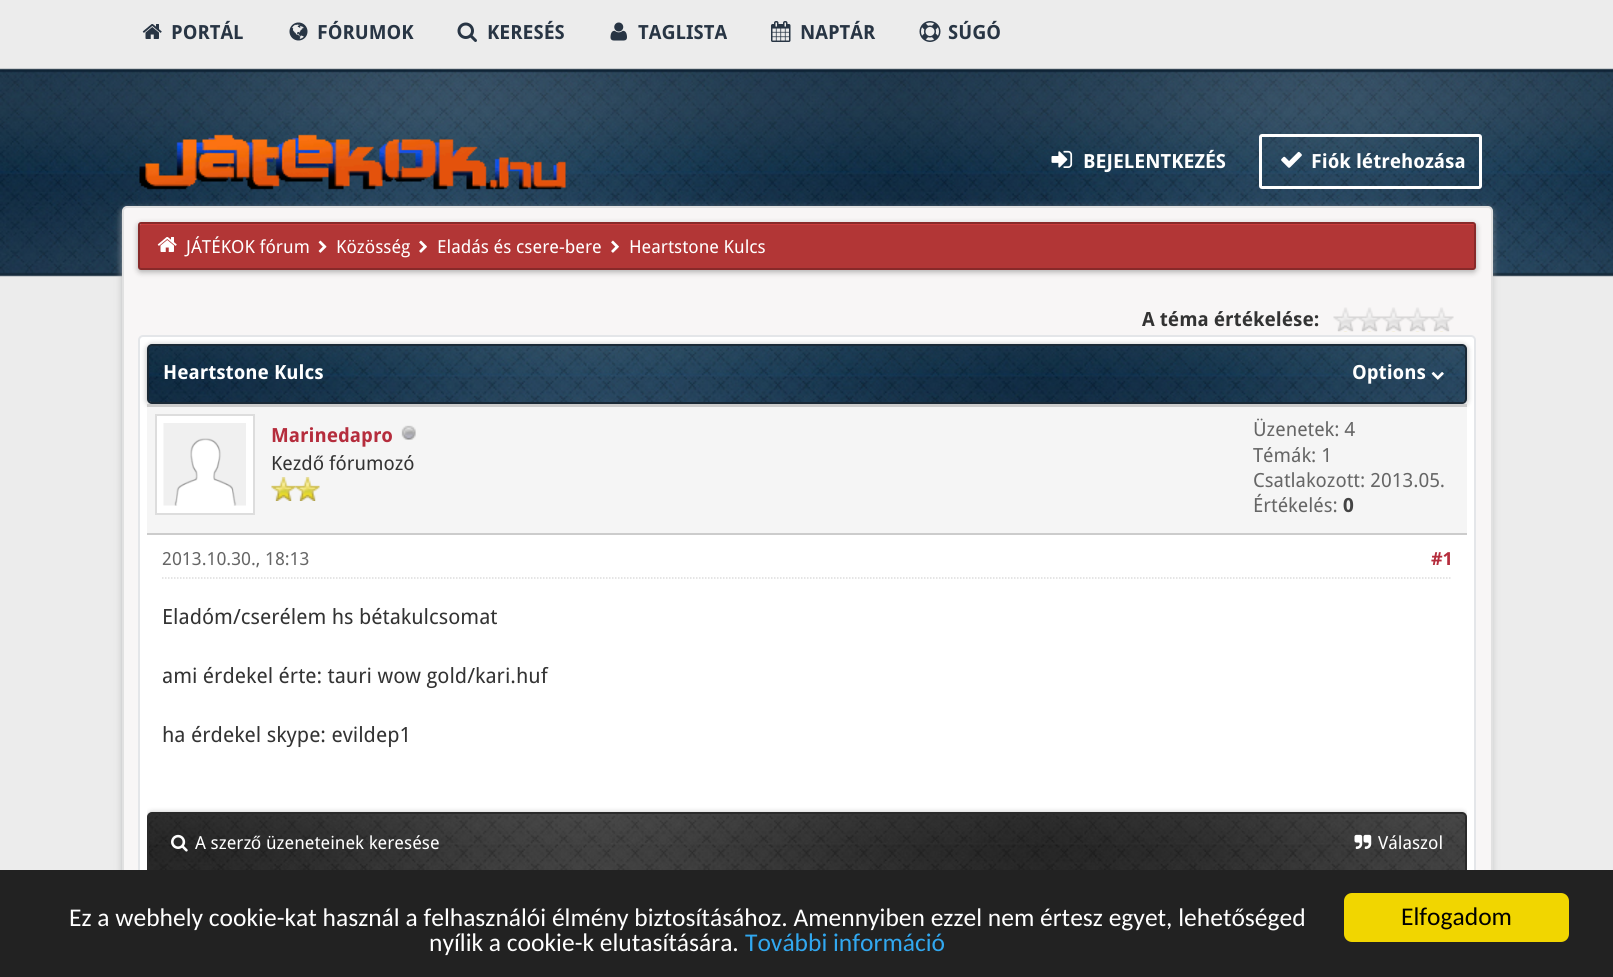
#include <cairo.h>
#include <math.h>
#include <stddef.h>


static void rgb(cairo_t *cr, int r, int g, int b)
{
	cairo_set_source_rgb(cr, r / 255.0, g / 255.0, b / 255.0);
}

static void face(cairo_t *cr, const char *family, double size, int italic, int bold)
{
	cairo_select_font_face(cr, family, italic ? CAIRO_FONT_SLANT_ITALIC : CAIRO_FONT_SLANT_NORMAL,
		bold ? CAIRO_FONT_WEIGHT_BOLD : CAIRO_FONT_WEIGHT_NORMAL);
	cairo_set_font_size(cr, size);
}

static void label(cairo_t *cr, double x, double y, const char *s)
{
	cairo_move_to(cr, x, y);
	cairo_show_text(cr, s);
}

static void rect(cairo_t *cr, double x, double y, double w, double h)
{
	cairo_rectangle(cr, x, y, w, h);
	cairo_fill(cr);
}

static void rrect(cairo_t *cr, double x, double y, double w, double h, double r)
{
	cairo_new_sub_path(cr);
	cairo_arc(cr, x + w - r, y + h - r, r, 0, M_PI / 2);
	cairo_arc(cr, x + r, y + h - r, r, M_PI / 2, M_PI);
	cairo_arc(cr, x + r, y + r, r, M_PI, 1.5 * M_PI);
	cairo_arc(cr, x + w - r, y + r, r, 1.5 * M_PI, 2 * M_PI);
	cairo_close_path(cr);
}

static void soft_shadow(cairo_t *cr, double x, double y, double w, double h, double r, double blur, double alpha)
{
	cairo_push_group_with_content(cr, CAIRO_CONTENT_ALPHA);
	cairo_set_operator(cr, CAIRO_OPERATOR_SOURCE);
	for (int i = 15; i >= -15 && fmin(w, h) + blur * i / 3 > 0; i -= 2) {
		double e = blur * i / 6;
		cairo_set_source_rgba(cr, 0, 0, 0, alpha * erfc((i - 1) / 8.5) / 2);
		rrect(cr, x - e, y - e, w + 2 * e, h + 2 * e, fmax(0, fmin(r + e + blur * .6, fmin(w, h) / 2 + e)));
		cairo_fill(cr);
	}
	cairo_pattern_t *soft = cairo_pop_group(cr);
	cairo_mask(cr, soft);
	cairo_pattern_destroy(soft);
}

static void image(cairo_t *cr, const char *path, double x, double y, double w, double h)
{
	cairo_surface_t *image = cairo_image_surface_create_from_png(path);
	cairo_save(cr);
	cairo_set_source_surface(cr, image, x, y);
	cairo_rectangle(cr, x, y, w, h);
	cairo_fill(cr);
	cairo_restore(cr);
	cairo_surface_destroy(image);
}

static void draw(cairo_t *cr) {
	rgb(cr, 236, 236, 236);
	cairo_paint(cr);
	image(cr, "image0.png", 0, 68, 1613, 209);
	image(cr, "image1.png", 142, 24, 20, 15);
	face(cr, "Droid Sans", 19.5, 0, 1);
	rgb(cr, 40, 53, 68);
	label(cr, 171, 39, "PORTÁL");
	image(cr, "image2.png", 289, 22, 19, 19);
	label(cr, 317, 39, "FÓRUMOK");
	image(cr, "image3.png", 457, 22, 20, 20);
	label(cr, 487, 39, "KERESÉS");
	image(cr, "image4.png", 610, 22, 17, 19);
	label(cr, 638, 39, "TAGLISTA");
	image(cr, "image5.png", 771, 21, 20, 21);
	label(cr, 800, 39, "NAPTÁR");
	image(cr, "image6.png", 919, 21, 22, 21);
	label(cr, 948, 39, "SÚGÓ");
	image(cr, "image7.png", 139, 134, 427, 56);
	image(cr, "image8.png", 1051, 150, 22, 18);
	rgb(cr, 255, 255, 255);
	label(cr, 1083, 168, "BEJELENTKEZÉS");
	rrect(cr, 1260.5, 135.5, 220, 52, 1.5);
	cairo_set_line_width(cr, 3);
	cairo_stroke(cr);
	image(cr, "image9.png", 1281, 151, 21, 17);
	label(cr, 1311, 168, "Fiók létrehozása");
	rgb(cr, 173, 174, 175);
	soft_shadow(cr, 123, 210, 1368, 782, 3, 4, 1);
	rgb(cr, 248, 246, 246);
	rrect(cr, 123, 207, 1369, 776, 4);
	cairo_fill_preserve(cr);
	rgb(cr, 225, 225, 225);
	cairo_set_line_width(cr, 2);
	cairo_stroke(cr);
	rgb(cr, 0, 0, 0);
	soft_shadow(cr, 138, 224, 1338, 48, 3, 3, 0.3);
	rgb(cr, 178, 54, 54);
	rrect(cr, 140, 224, 1335, 45, 1.5);
	cairo_fill(cr);
	rgb(cr, 204, 61, 61);
	cairo_new_path(cr);
	cairo_move_to(cr, 141, 225);
	cairo_line_to(cr, 1473, 225);
	cairo_curve_to(cr, 1474, 225, 1474, 226, 1474, 226);
	cairo_line_to(cr, 1474, 269);
	cairo_curve_to(cr, 1475, 269, 1475, 268, 1475, 268);
	cairo_line_to(cr, 1475, 226);
	cairo_curve_to(cr, 1475, 225, 1474, 224, 1474, 224);
	cairo_line_to(cr, 142, 224);
	cairo_curve_to(cr, 141, 224, 140, 225, 140, 226);
	cairo_close_path(cr);
	cairo_fill(cr);
	rrect(cr, 139, 223, 1336, 46, 2);
	rgb(cr, 136, 41, 41);
	cairo_stroke(cr);
	image(cr, "image10.png", 157, 237, 20, 15);
	face(cr, "Droid Sans", 18, 0, 0);
	rgb(cr, 255, 255, 255);
	label(cr, 186, 253, "JÁTÉKOK fórum");
	image(cr, "image11.png", 318, 240, 9, 13);
	label(cr, 336, 253, "Közösség");
	image(cr, "image12.png", 419, 240, 8, 13);
	label(cr, 437, 253, "Eladás és csere-bere");
	image(cr, "image12.png", 611, 240, 8, 13);
	label(cr, 629, 253, "Heartstone Kulcs");
	face(cr, "Droid Sans", 19.5, 0, 1);
	rgb(cr, 51, 51, 51);
	label(cr, 1142, 326, "A téma értékelése:");
	image(cr, "image13.png", 1333, 307, 121, 25);
	rgb(cr, 255, 255, 255);
	rrect(cr, 139, 336, 1336, 598, 4);
	cairo_fill_preserve(cr);
	rgb(cr, 228, 230, 233);
	cairo_stroke(cr);
	rgb(cr, 0, 0, 0);
	soft_shadow(cr, 147, 345, 1320, 60, 5, 3, 0.3);
	image(cr, "image14.png", 149, 346, 1316, 56);
	rrect(cr, 148, 345, 1318, 58, 4);
	rgb(cr, 26, 41, 54);
	cairo_stroke(cr);
	rgb(cr, 255, 255, 255);
	label(cr, 163, 379, "Heartstone Kulcs");
	label(cr, 1352, 379, "Options");
	image(cr, "image15.png", 1431, 372, 13, 8);
	rgb(cr, 245, 245, 245);
	rect(cr, 147, 407, 1320, 126);
	rgb(cr, 204, 204, 204);
	rect(cr, 147, 404, 1320, 3);
	rect(cr, 147, 533, 1320, 2);
	rgb(cr, 255, 255, 255);
	cairo_rectangle(cr, 156, 415, 98, 99);
	cairo_fill_preserve(cr);
	rgb(cr, 221, 221, 221);
	cairo_stroke(cr);
	image(cr, "image16.png", 163, 423, 83, 83);
	rgb(cr, 181, 45, 61);
	label(cr, 271, 442, "Marinedapro");
	image(cr, "image17.png", 401, 425, 15, 15);
	face(cr, "Droid Sans", 19.5, 0, 0);
	rgb(cr, 51, 51, 51);
	label(cr, 271, 470, "Kezd");
	face(cr, "Liberation Sans", 19.5, 0, 0);
	label(cr, 313, 470, "ő");
	face(cr, "Droid Sans", 19.5, 0, 0);
	label(cr, 329, 470, "fórumozó");
	image(cr, "image18.png", 271, 477, 25, 24);
	image(cr, "image19.png", 295, 477, 25, 24);
	rgb(cr, 102, 102, 102);
	label(cr, 1253, 436, "Üzenetek: 4");
	label(cr, 1253, 462, "Témák: 1");
	label(cr, 1253, 487, "Csatlakozott: 2013.05.");
	label(cr, 1253, 512, "Értékelés:");
	face(cr, "Droid Sans", 19.5, 0, 1);
	rgb(cr, 68, 68, 68);
	label(cr, 1343, 512, "0");
	cairo_new_path(cr);
	cairo_move_to(cr, 162, 578);
	cairo_line_to(cr, 1452, 578);
	rgb(cr, 221, 221, 221);
	cairo_set_line_width(cr, 1.5);
	cairo_set_dash(cr, (double[]){1.5, 1.5}, 2, 0);
	cairo_stroke(cr);
	face(cr, "Droid Sans", 18, 0, 0);
	rgb(cr, 102, 102, 102);
	label(cr, 162, 565, "2013.10.30., 18:13");
	face(cr, "Droid Sans", 18, 0, 1);
	rgb(cr, 181, 45, 61);
	label(cr, 1431, 565, "#1");
	face(cr, "Droid Sans", 21, 0, 0);
	rgb(cr, 51, 51, 51);
	label(cr, 162, 624, "Eladóm/cserélem hs bétakulcsomat");
	label(cr, 162, 683, "ami érdekel érte: tauri wow gold/kari.huf");
	label(cr, 162, 742, "ha érdekel skype: evildep1");
	cairo_save(cr);
	cairo_rectangle(cr, 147, 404, 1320, 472);
	cairo_clip(cr);
	rgb(cr, 0, 0, 0);
	soft_shadow(cr, 147, 813, 1320, 65, 5, 3, 0.3);
	cairo_restore(cr);
	image(cr, "image20.png", 149, 814, 1316, 56);
	rrect(cr, 148, 813, 1318, 62, 4);
	rgb(cr, 42, 42, 42);
	cairo_set_line_width(cr, 2);
	cairo_set_dash(cr, NULL, 0, 0);
	cairo_stroke(cr);
	image(cr, "image21.png", 171, 834, 17, 18);
	face(cr, "Droid Sans", 18, 0, 0);
	rgb(cr, 255, 255, 255);
	label(cr, 195, 849, "A szerz");
	face(cr, "Liberation Sans", 18, 0, 0);
	label(cr, 251, 849, "ő");
	face(cr, "Droid Sans", 18, 0, 0);
	label(cr, 266, 849, "üzeneteinek keresése");
	image(cr, "image22.png", 1354, 834, 18, 15);
	label(cr, 1378, 849, "Válaszol");
	rgb(cr, 34, 34, 34);
	rect(cr, 0, 870, 1613, 107);
	face(cr, "Carlito", 25.5, 0, 0);
	rgb(cr, 255, 255, 255);
	label(cr, 69, 926, "Ez a webhely cookie-kat használ a felhasználói élmény biztosításához. Amennyiben ezzel nem értesz egyet, lehetőséged");
	label(cr, 429, 951, "nyílik a cookie-k elutasítására.");
	rgb(cr, 49, 168, 240);
	label(cr, 745, 951, "További információ");
	rgb(cr, 241, 214, 0);
	rrect(cr, 1344, 893, 225, 49, 8);
	cairo_fill(cr);
	rgb(cr, 0, 0, 0);
	label(cr, 1401, 925, "Elfogadom");
}

int main(void) {
	cairo_surface_t *surface = cairo_image_surface_create(CAIRO_FORMAT_RGB24, 1613, 977);
	cairo_t *cr = cairo_create(surface);
	cairo_font_options_t *options = cairo_font_options_create();
	cairo_font_options_set_hint_metrics(options, CAIRO_HINT_METRICS_OFF);
	cairo_font_options_set_hint_style(options, CAIRO_HINT_STYLE_NONE);
	cairo_set_font_options(cr, options);
	cairo_set_miter_limit(cr, 4);
	draw(cr);
	cairo_surface_write_to_png(surface, "render.png");
	cairo_font_options_destroy(options);
	cairo_destroy(cr);
	cairo_surface_destroy(surface);
	return 0;
}
